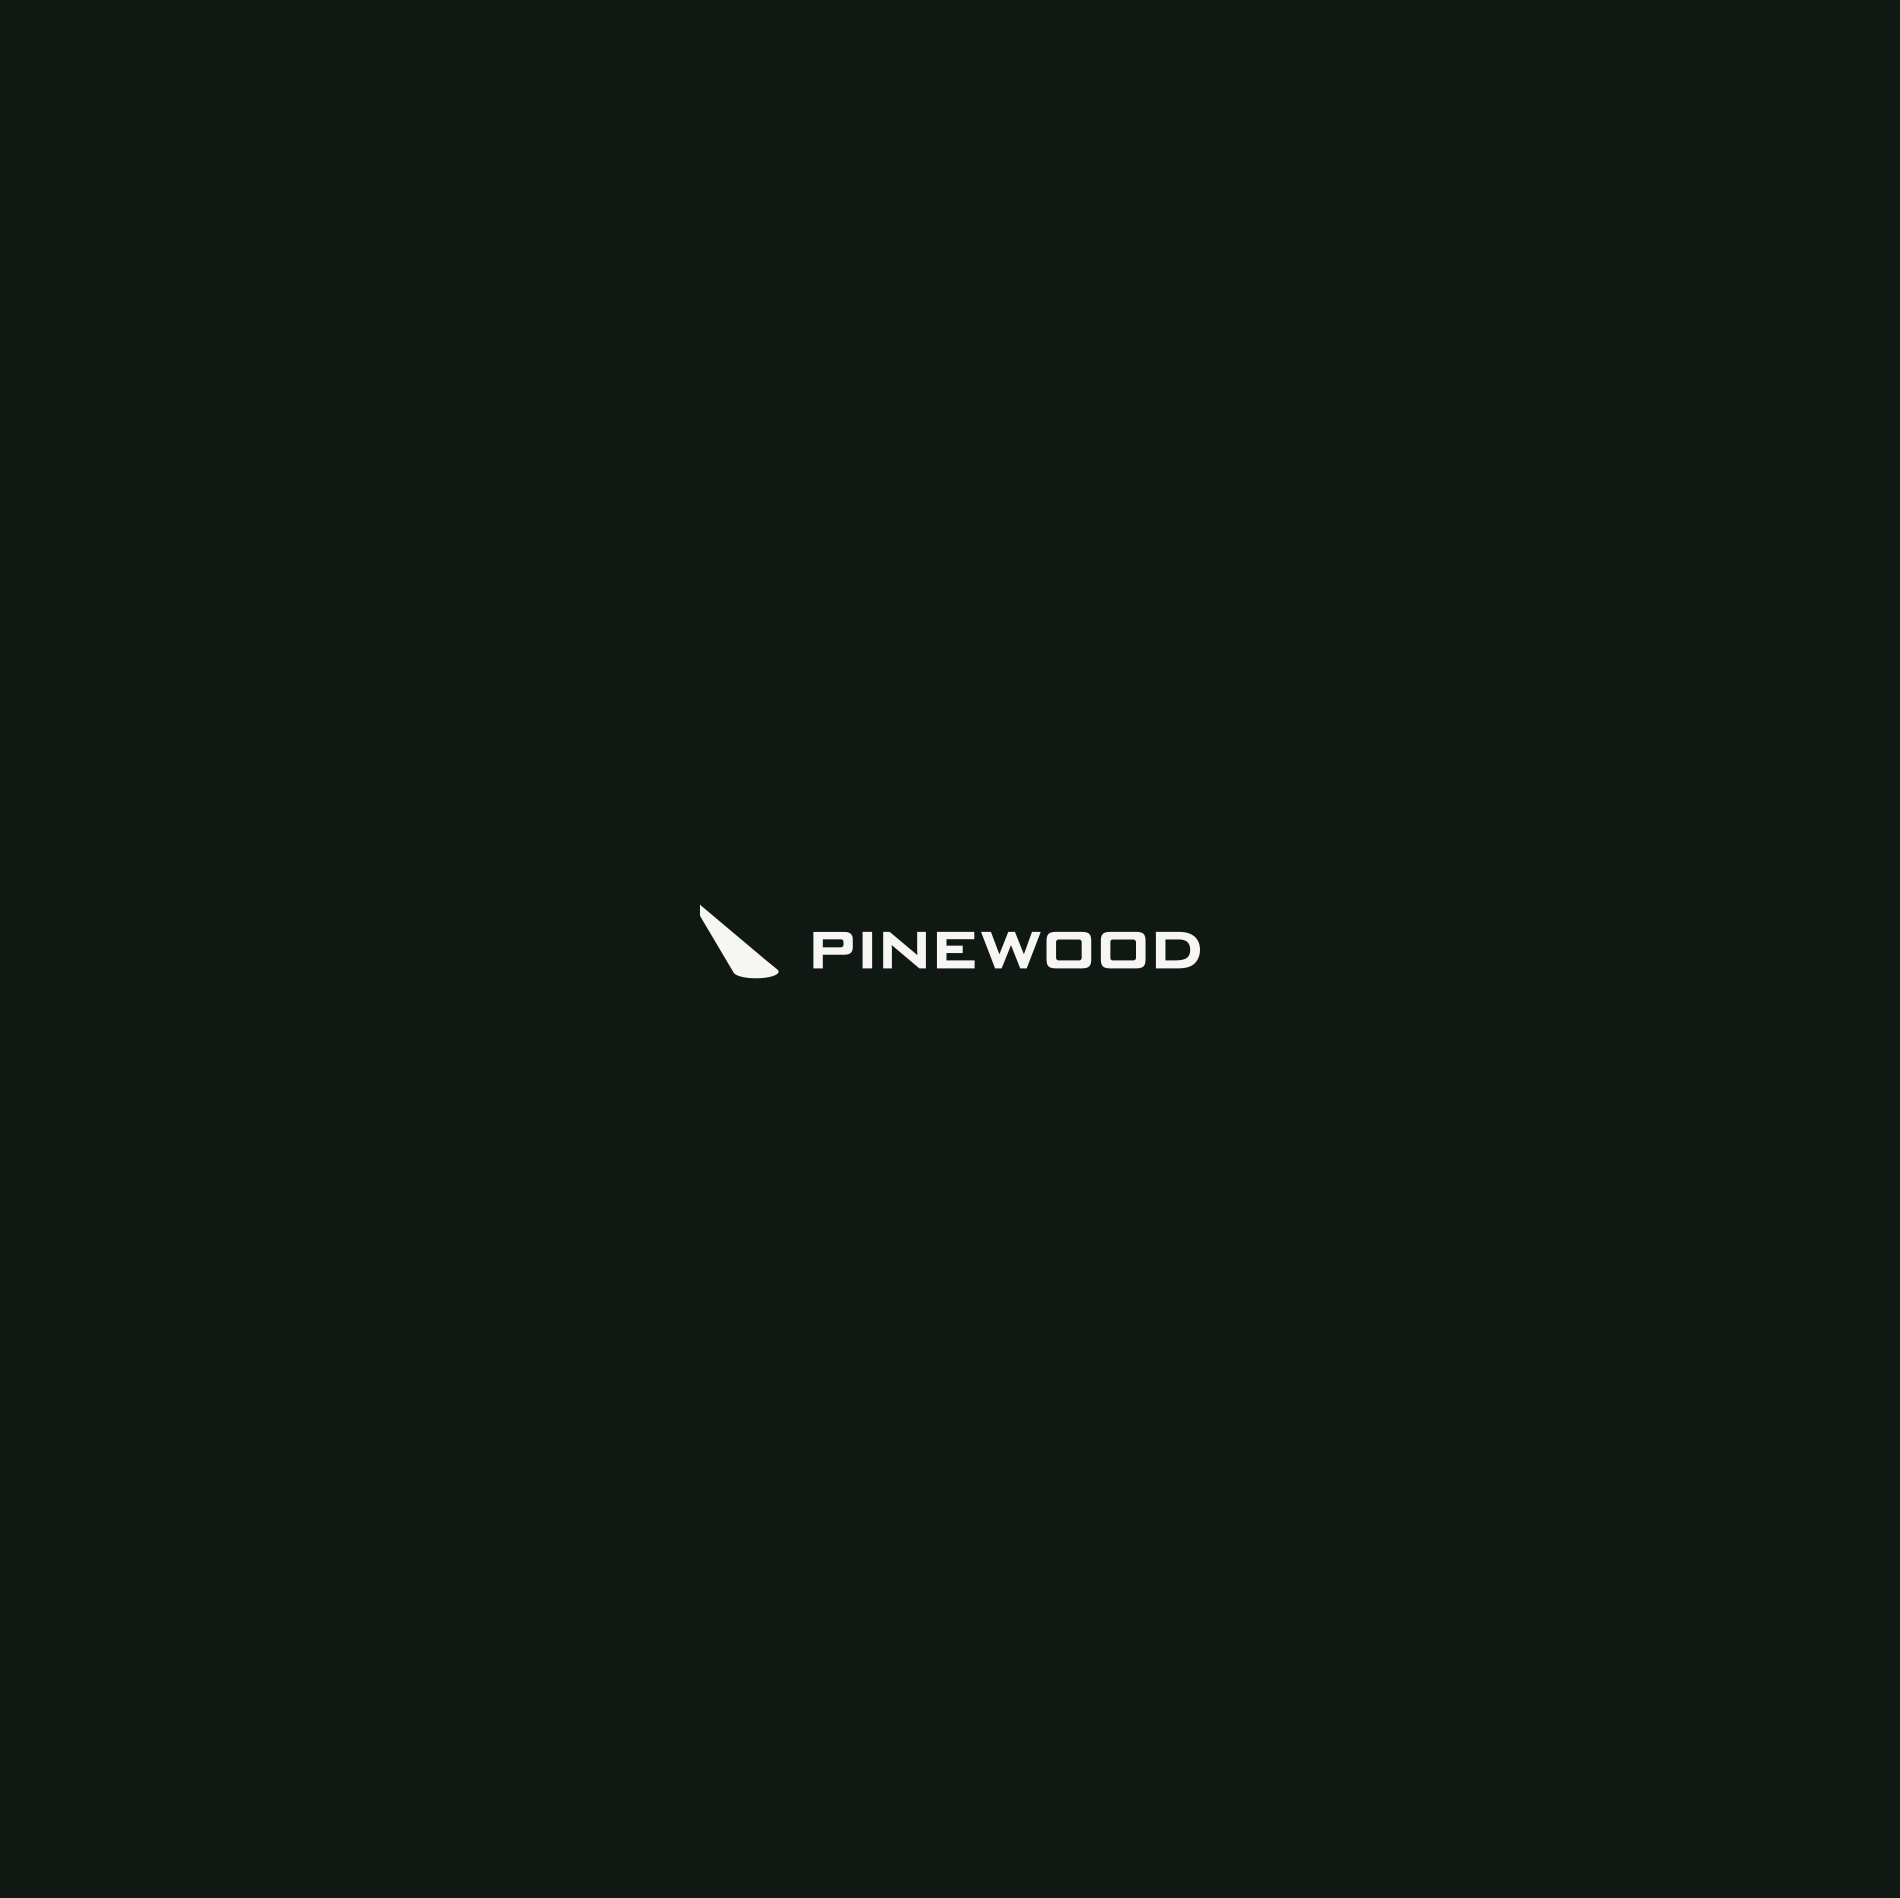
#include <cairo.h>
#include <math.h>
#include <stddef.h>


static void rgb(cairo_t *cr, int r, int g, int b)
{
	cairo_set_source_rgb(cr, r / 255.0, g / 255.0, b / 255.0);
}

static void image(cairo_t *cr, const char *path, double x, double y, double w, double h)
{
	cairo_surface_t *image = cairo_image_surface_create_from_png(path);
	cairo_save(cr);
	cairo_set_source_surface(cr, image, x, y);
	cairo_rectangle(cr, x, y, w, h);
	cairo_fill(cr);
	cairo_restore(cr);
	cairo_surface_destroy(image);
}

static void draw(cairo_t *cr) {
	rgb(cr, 16, 24, 20);
	cairo_paint(cr);
	image(cr, "image0.png", 700, 905, 500, 74);
}

int main(void) {
	cairo_surface_t *surface = cairo_image_surface_create(CAIRO_FORMAT_RGB24, 1900, 1898);
	cairo_t *cr = cairo_create(surface);
	cairo_font_options_t *options = cairo_font_options_create();
	cairo_font_options_set_hint_metrics(options, CAIRO_HINT_METRICS_OFF);
	cairo_font_options_set_hint_style(options, CAIRO_HINT_STYLE_NONE);
	cairo_set_font_options(cr, options);
	cairo_set_miter_limit(cr, 4);
	draw(cr);
	cairo_surface_write_to_png(surface, "render.png");
	cairo_font_options_destroy(options);
	cairo_destroy(cr);
	cairo_surface_destroy(surface);
	return 0;
}
